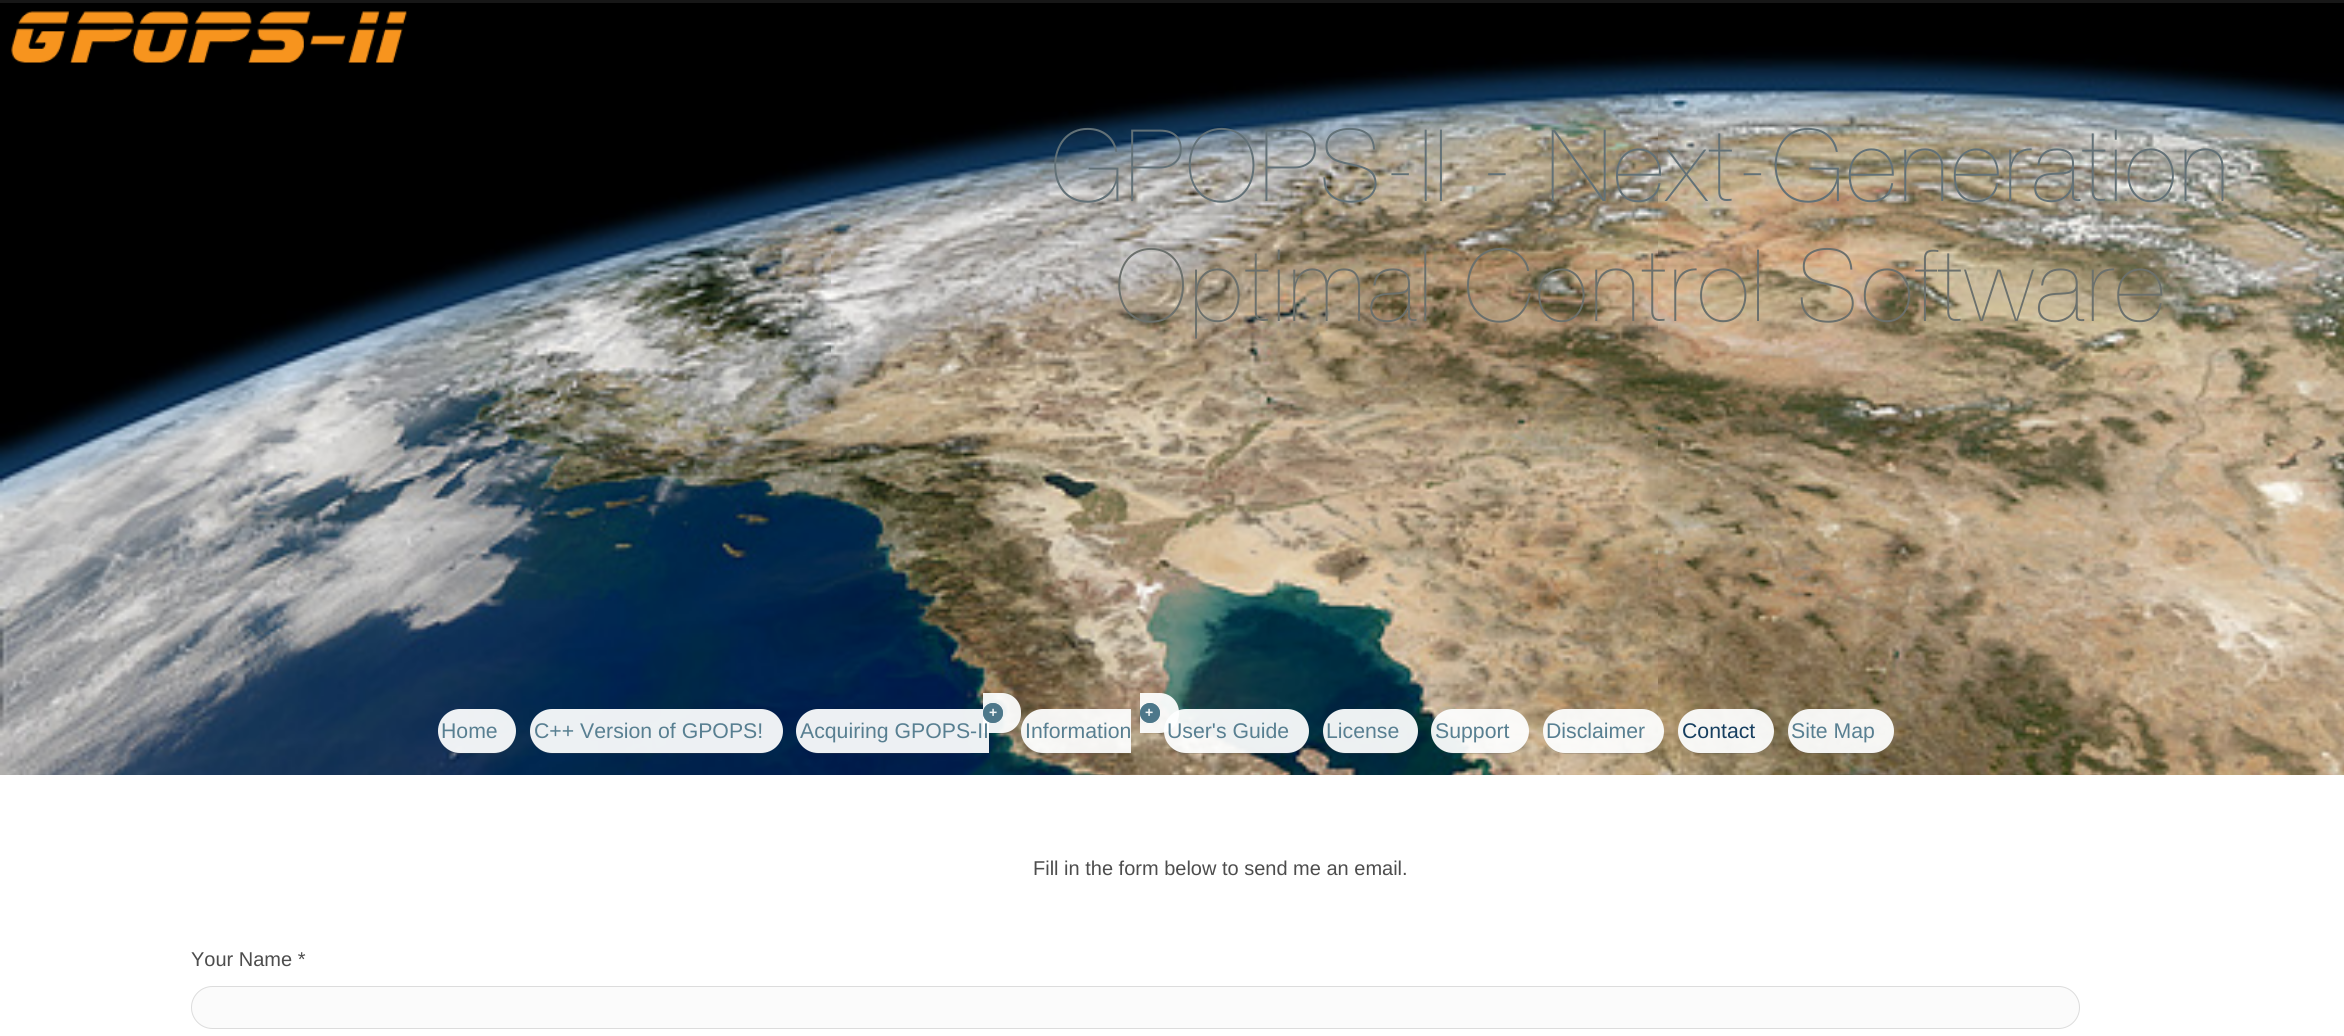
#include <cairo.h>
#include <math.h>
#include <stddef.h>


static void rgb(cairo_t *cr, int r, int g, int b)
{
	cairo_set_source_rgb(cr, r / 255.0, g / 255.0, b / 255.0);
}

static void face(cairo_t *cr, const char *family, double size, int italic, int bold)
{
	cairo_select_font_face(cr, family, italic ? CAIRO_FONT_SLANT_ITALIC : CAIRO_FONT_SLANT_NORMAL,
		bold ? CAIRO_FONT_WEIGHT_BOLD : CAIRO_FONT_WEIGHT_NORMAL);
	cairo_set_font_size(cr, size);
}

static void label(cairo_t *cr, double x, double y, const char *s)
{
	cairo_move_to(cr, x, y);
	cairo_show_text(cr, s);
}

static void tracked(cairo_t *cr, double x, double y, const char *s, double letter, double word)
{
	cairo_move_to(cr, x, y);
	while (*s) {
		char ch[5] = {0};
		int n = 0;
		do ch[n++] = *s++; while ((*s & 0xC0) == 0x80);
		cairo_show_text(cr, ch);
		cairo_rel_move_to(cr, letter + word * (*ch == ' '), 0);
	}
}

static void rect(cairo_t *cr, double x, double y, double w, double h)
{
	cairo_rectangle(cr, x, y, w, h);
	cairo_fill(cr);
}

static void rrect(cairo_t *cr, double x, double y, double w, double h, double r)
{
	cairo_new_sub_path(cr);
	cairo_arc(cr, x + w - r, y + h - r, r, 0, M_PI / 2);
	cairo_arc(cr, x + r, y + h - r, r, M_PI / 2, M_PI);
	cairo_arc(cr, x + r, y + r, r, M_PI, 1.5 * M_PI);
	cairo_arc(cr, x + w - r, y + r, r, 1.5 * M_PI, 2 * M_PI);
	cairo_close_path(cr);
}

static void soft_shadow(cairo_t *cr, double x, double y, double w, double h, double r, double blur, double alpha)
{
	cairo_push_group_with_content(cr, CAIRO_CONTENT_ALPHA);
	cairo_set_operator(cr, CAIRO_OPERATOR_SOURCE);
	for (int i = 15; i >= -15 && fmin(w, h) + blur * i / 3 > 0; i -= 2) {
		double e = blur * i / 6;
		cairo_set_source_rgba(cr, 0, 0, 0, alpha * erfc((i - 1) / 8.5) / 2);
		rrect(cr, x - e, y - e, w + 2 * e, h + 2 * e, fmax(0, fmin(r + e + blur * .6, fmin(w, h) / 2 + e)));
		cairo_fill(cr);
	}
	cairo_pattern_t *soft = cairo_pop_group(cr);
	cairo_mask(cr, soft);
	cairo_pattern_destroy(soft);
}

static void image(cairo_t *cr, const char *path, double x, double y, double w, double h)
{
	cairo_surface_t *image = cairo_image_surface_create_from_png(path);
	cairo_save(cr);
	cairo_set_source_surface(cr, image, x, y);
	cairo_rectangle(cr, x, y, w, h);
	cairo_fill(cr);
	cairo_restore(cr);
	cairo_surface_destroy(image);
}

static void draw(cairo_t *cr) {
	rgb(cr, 255, 255, 255);
	cairo_paint(cr);
	rgb(cr, 23, 23, 23);
	rect(cr, 0, 0, 2344, 3);
	image(cr, "image0.png", 0, 3, 2344, 772);
	image(cr, "image1.png", 11, 11, 396, 52);
	face(cr, "Helvetica Neue ExtraLight", 100, 0, 0);
	rgb(cr, 98, 113, 119);
	tracked(cr, 1051, 201, "GPOPS-II - Next-Generation", 2.5, 0);
	rgb(cr, 107, 112, 108);
	tracked(cr, 1115, 321, "Optimal Control Software", 2.5, 0);
	cairo_save(cr);
	cairo_set_fill_rule(cr, CAIRO_FILL_RULE_EVEN_ODD);
	cairo_new_path(cr);
	cairo_move_to(cr, 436, 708);
	cairo_line_to(cr, 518, 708);
	cairo_line_to(cr, 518, 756);
	cairo_line_to(cr, 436, 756);
	cairo_close_path(cr);
	cairo_move_to(cr, 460, 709);
	cairo_line_to(cr, 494, 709);
	cairo_curve_to(cr, 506, 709, 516, 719, 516, 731);
	cairo_curve_to(cr, 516, 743, 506, 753, 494, 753);
	cairo_line_to(cr, 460, 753);
	cairo_curve_to(cr, 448, 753, 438, 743, 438, 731);
	cairo_curve_to(cr, 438, 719, 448, 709, 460, 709);
	cairo_close_path(cr);
	cairo_clip(cr);
	rgb(cr, 82, 82, 82);
	soft_shadow(cr, 439, 711, 76, 42, 21, 0.5, 0.93);
	cairo_restore(cr);
	cairo_set_source_rgba(cr, 0.996, 1, 1, 0.93);
	rrect(cr, 438, 709, 78, 44, 22);
	cairo_fill(cr);
	face(cr, "Liberation Sans", 21.25, 0, 0);
	rgb(cr, 88, 127, 145);
	label(cr, 441, 738, "Home");
	cairo_save(cr);
	cairo_set_fill_rule(cr, CAIRO_FILL_RULE_EVEN_ODD);
	cairo_new_path(cr);
	cairo_move_to(cr, 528, 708);
	cairo_line_to(cr, 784, 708);
	cairo_line_to(cr, 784, 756);
	cairo_line_to(cr, 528, 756);
	cairo_close_path(cr);
	cairo_move_to(cr, 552, 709);
	cairo_line_to(cr, 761, 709);
	cairo_curve_to(cr, 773, 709, 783, 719, 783, 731);
	cairo_curve_to(cr, 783, 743, 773, 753, 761, 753);
	cairo_line_to(cr, 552, 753);
	cairo_curve_to(cr, 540, 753, 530, 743, 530, 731);
	cairo_curve_to(cr, 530, 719, 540, 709, 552, 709);
	cairo_close_path(cr);
	cairo_clip(cr);
	rgb(cr, 82, 82, 82);
	soft_shadow(cr, 531, 711, 250, 42, 21, 0.5, 0.93);
	cairo_restore(cr);
	cairo_set_source_rgba(cr, 0.996, 1, 1, 0.93);
	rrect(cr, 530, 709, 253, 44, 22);
	cairo_fill(cr);
	rgb(cr, 88, 127, 145);
	label(cr, 534, 738, "C++ Version of GPOPS!");
	cairo_save(cr);
	cairo_set_fill_rule(cr, CAIRO_FILL_RULE_EVEN_ODD);
	cairo_new_path(cr);
	cairo_move_to(cr, 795, 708);
	cairo_line_to(cr, 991, 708);
	cairo_line_to(cr, 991, 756);
	cairo_line_to(cr, 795, 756);
	cairo_close_path(cr);
	cairo_move_to(cr, 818, 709);
	cairo_line_to(cr, 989, 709);
	cairo_line_to(cr, 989, 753);
	cairo_line_to(cr, 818, 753);
	cairo_curve_to(cr, 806, 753, 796, 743, 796, 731);
	cairo_curve_to(cr, 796, 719, 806, 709, 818, 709);
	cairo_close_path(cr);
	cairo_clip(cr);
	rgb(cr, 82, 82, 82);
	soft_shadow(cr, 798, 711, 190, 42, 21, 0.5, 0.93);
	cairo_restore(cr);
	cairo_set_source_rgba(cr, 0.996, 1, 1, 0.93);
	cairo_new_path(cr);
	cairo_move_to(cr, 818, 709);
	cairo_line_to(cr, 989, 709);
	cairo_line_to(cr, 989, 753);
	cairo_line_to(cr, 818, 753);
	cairo_curve_to(cr, 806, 753, 796, 743, 796, 731);
	cairo_curve_to(cr, 796, 719, 806, 709, 818, 709);
	cairo_close_path(cr);
	cairo_fill(cr);
	cairo_save(cr);
	cairo_set_fill_rule(cr, CAIRO_FILL_RULE_EVEN_ODD);
	cairo_new_path(cr);
	cairo_move_to(cr, 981, 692);
	cairo_line_to(cr, 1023, 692);
	cairo_line_to(cr, 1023, 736);
	cairo_line_to(cr, 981, 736);
	cairo_close_path(cr);
	cairo_move_to(cr, 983, 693);
	cairo_line_to(cr, 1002, 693);
	cairo_curve_to(cr, 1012.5, 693, 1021, 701.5, 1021, 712);
	cairo_line_to(cr, 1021, 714);
	cairo_curve_to(cr, 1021, 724.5, 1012.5, 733, 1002, 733);
	cairo_line_to(cr, 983, 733);
	cairo_close_path(cr);
	cairo_clip(cr);
	rgb(cr, 82, 82, 82);
	soft_shadow(cr, 984, 695, 36, 38, 18, 0.5, 0.93);
	cairo_restore(cr);
	cairo_new_path(cr);
	cairo_move_to(cr, 983, 693);
	cairo_line_to(cr, 1002, 693);
	cairo_curve_to(cr, 1012.5, 693, 1021, 701.5, 1021, 712);
	cairo_line_to(cr, 1021, 714);
	cairo_curve_to(cr, 1021, 724.5, 1012.5, 733, 1002, 733);
	cairo_line_to(cr, 983, 733);
	cairo_close_path(cr);
	cairo_fill(cr);
	rgb(cr, 88, 127, 145);
	label(cr, 800, 738, "Acquiring GPOPS-II");
	cairo_set_source_rgba(cr, 0.302, 0.467, 0.541, 0.93);
	cairo_new_path(cr);
	cairo_arc(cr, 993, 713, 10, 0, 2 * M_PI);
	cairo_fill(cr);
	cairo_arc(cr, 993, 713, 10, 0, 2 * M_PI);
	cairo_fill(cr);
	face(cr, "Liberation Sans", 14, 0, 1);
	rgb(cr, 242, 246, 247);
	label(cr, 989, 717, "+");
	cairo_save(cr);
	cairo_set_fill_rule(cr, CAIRO_FILL_RULE_EVEN_ODD);
	cairo_new_path(cr);
	cairo_move_to(cr, 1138, 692);
	cairo_line_to(cr, 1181, 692);
	cairo_line_to(cr, 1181, 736);
	cairo_line_to(cr, 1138, 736);
	cairo_close_path(cr);
	cairo_move_to(cr, 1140, 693);
	cairo_line_to(cr, 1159.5, 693);
	cairo_curve_to(cr, 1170.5, 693, 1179, 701.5, 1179, 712.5);
	cairo_line_to(cr, 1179, 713.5);
	cairo_curve_to(cr, 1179, 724.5, 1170.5, 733, 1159.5, 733);
	cairo_line_to(cr, 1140, 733);
	cairo_close_path(cr);
	cairo_clip(cr);
	rgb(cr, 82, 82, 82);
	soft_shadow(cr, 1141, 695, 37, 38, 18.5, 0.5, 0.93);
	cairo_restore(cr);
	cairo_set_source_rgba(cr, 0.996, 1, 1, 0.93);
	cairo_new_path(cr);
	cairo_move_to(cr, 1140, 693);
	cairo_line_to(cr, 1159.5, 693);
	cairo_curve_to(cr, 1170.5, 693, 1179, 701.5, 1179, 712.5);
	cairo_line_to(cr, 1179, 713.5);
	cairo_curve_to(cr, 1179, 724.5, 1170.5, 733, 1159.5, 733);
	cairo_line_to(cr, 1140, 733);
	cairo_close_path(cr);
	cairo_fill(cr);
	cairo_set_source_rgba(cr, 0.302, 0.467, 0.541, 0.93);
	cairo_arc(cr, 1150, 713, 10, 0, 2 * M_PI);
	cairo_fill(cr);
	cairo_arc(cr, 1150, 713, 10, 0, 2 * M_PI);
	cairo_fill(cr);
	rgb(cr, 242, 246, 247);
	label(cr, 1145, 717, "+");
	cairo_save(cr);
	cairo_set_fill_rule(cr, CAIRO_FILL_RULE_EVEN_ODD);
	cairo_new_path(cr);
	cairo_move_to(cr, 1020, 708);
	cairo_line_to(cr, 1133, 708);
	cairo_line_to(cr, 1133, 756);
	cairo_line_to(cr, 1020, 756);
	cairo_close_path(cr);
	cairo_move_to(cr, 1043, 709);
	cairo_line_to(cr, 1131, 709);
	cairo_line_to(cr, 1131, 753);
	cairo_line_to(cr, 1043, 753);
	cairo_curve_to(cr, 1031, 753, 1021, 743, 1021, 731);
	cairo_curve_to(cr, 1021, 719, 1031, 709, 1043, 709);
	cairo_close_path(cr);
	cairo_clip(cr);
	rgb(cr, 82, 82, 82);
	soft_shadow(cr, 1023, 711, 107, 42, 21, 0.5, 0.93);
	cairo_restore(cr);
	cairo_set_source_rgba(cr, 0.996, 1, 1, 0.93);
	cairo_new_path(cr);
	cairo_move_to(cr, 1043, 709);
	cairo_line_to(cr, 1131, 709);
	cairo_line_to(cr, 1131, 753);
	cairo_line_to(cr, 1043, 753);
	cairo_curve_to(cr, 1031, 753, 1021, 743, 1021, 731);
	cairo_curve_to(cr, 1021, 719, 1031, 709, 1043, 709);
	cairo_close_path(cr);
	cairo_fill(cr);
	face(cr, "Liberation Sans", 21.25, 0, 0);
	rgb(cr, 88, 127, 145);
	label(cr, 1025, 738, "Information");
	cairo_save(cr);
	cairo_set_fill_rule(cr, CAIRO_FILL_RULE_EVEN_ODD);
	cairo_new_path(cr);
	cairo_move_to(cr, 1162, 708);
	cairo_line_to(cr, 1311, 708);
	cairo_line_to(cr, 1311, 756);
	cairo_line_to(cr, 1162, 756);
	cairo_close_path(cr);
	cairo_move_to(cr, 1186, 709);
	cairo_line_to(cr, 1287, 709);
	cairo_curve_to(cr, 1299, 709, 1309, 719, 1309, 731);
	cairo_curve_to(cr, 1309, 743, 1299, 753, 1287, 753);
	cairo_line_to(cr, 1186, 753);
	cairo_curve_to(cr, 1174, 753, 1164, 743, 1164, 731);
	cairo_curve_to(cr, 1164, 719, 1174, 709, 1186, 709);
	cairo_close_path(cr);
	cairo_clip(cr);
	rgb(cr, 82, 82, 82);
	soft_shadow(cr, 1165, 711, 143, 42, 21, 0.5, 0.93);
	cairo_restore(cr);
	cairo_set_source_rgba(cr, 0.996, 1, 1, 0.93);
	rrect(cr, 1164, 709, 145, 44, 22);
	cairo_fill(cr);
	rgb(cr, 88, 127, 145);
	label(cr, 1167, 738, "User's Guide");
	cairo_save(cr);
	cairo_set_fill_rule(cr, CAIRO_FILL_RULE_EVEN_ODD);
	cairo_new_path(cr);
	cairo_move_to(cr, 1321, 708);
	cairo_line_to(cr, 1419, 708);
	cairo_line_to(cr, 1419, 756);
	cairo_line_to(cr, 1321, 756);
	cairo_close_path(cr);
	cairo_move_to(cr, 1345, 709);
	cairo_line_to(cr, 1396, 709);
	cairo_curve_to(cr, 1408, 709, 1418, 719, 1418, 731);
	cairo_curve_to(cr, 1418, 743, 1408, 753, 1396, 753);
	cairo_line_to(cr, 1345, 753);
	cairo_curve_to(cr, 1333, 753, 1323, 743, 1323, 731);
	cairo_curve_to(cr, 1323, 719, 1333, 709, 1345, 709);
	cairo_close_path(cr);
	cairo_clip(cr);
	rgb(cr, 82, 82, 82);
	soft_shadow(cr, 1324, 711, 92, 42, 21, 0.5, 0.93);
	cairo_restore(cr);
	cairo_set_source_rgba(cr, 0.996, 1, 1, 0.93);
	rrect(cr, 1323, 709, 95, 44, 22);
	cairo_fill(cr);
	rgb(cr, 88, 127, 145);
	label(cr, 1326, 738, "License");
	cairo_save(cr);
	cairo_set_fill_rule(cr, CAIRO_FILL_RULE_EVEN_ODD);
	cairo_new_path(cr);
	cairo_move_to(cr, 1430, 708);
	cairo_line_to(cr, 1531, 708);
	cairo_line_to(cr, 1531, 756);
	cairo_line_to(cr, 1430, 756);
	cairo_close_path(cr);
	cairo_move_to(cr, 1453, 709);
	cairo_line_to(cr, 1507, 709);
	cairo_curve_to(cr, 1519, 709, 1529, 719, 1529, 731);
	cairo_curve_to(cr, 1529, 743, 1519, 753, 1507, 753);
	cairo_line_to(cr, 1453, 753);
	cairo_curve_to(cr, 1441, 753, 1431, 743, 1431, 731);
	cairo_curve_to(cr, 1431, 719, 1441, 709, 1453, 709);
	cairo_close_path(cr);
	cairo_clip(cr);
	rgb(cr, 82, 82, 82);
	soft_shadow(cr, 1433, 711, 95, 42, 21, 0.5, 0.93);
	cairo_restore(cr);
	cairo_set_source_rgba(cr, 0.996, 1, 1, 0.93);
	rrect(cr, 1431, 709, 98, 44, 22);
	cairo_fill(cr);
	rgb(cr, 88, 127, 145);
	label(cr, 1435, 738, "Support");
	cairo_save(cr);
	cairo_set_fill_rule(cr, CAIRO_FILL_RULE_EVEN_ODD);
	cairo_new_path(cr);
	cairo_move_to(cr, 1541, 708);
	cairo_line_to(cr, 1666, 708);
	cairo_line_to(cr, 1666, 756);
	cairo_line_to(cr, 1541, 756);
	cairo_close_path(cr);
	cairo_move_to(cr, 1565, 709);
	cairo_line_to(cr, 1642, 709);
	cairo_curve_to(cr, 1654, 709, 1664, 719, 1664, 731);
	cairo_curve_to(cr, 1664, 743, 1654, 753, 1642, 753);
	cairo_line_to(cr, 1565, 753);
	cairo_curve_to(cr, 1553, 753, 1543, 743, 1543, 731);
	cairo_curve_to(cr, 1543, 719, 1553, 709, 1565, 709);
	cairo_close_path(cr);
	cairo_clip(cr);
	rgb(cr, 82, 82, 82);
	soft_shadow(cr, 1544, 711, 119, 42, 21, 0.5, 0.93);
	cairo_restore(cr);
	cairo_set_source_rgba(cr, 0.996, 1, 1, 0.93);
	rrect(cr, 1543, 709, 121, 44, 22);
	cairo_fill(cr);
	rgb(cr, 88, 127, 145);
	label(cr, 1546, 738, "Disclaimer");
	cairo_save(cr);
	cairo_set_fill_rule(cr, CAIRO_FILL_RULE_EVEN_ODD);
	cairo_new_path(cr);
	cairo_move_to(cr, 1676, 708);
	cairo_line_to(cr, 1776, 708);
	cairo_line_to(cr, 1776, 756);
	cairo_line_to(cr, 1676, 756);
	cairo_close_path(cr);
	cairo_move_to(cr, 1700, 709);
	cairo_line_to(cr, 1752, 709);
	cairo_curve_to(cr, 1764, 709, 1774, 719, 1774, 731);
	cairo_curve_to(cr, 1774, 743, 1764, 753, 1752, 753);
	cairo_line_to(cr, 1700, 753);
	cairo_curve_to(cr, 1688, 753, 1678, 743, 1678, 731);
	cairo_curve_to(cr, 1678, 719, 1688, 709, 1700, 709);
	cairo_close_path(cr);
	cairo_clip(cr);
	rgb(cr, 82, 82, 82);
	soft_shadow(cr, 1679, 711, 94, 42, 21, 0.5, 0.93);
	cairo_restore(cr);
	cairo_set_source_rgba(cr, 0.996, 1, 1, 0.93);
	rrect(cr, 1678, 709, 96, 44, 22);
	cairo_fill(cr);
	rgb(cr, 23, 63, 96);
	label(cr, 1682, 738, "Contact");
	cairo_save(cr);
	cairo_set_fill_rule(cr, CAIRO_FILL_RULE_EVEN_ODD);
	cairo_new_path(cr);
	cairo_move_to(cr, 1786, 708);
	cairo_line_to(cr, 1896, 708);
	cairo_line_to(cr, 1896, 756);
	cairo_line_to(cr, 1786, 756);
	cairo_close_path(cr);
	cairo_move_to(cr, 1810, 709);
	cairo_line_to(cr, 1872, 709);
	cairo_curve_to(cr, 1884, 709, 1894, 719, 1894, 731);
	cairo_curve_to(cr, 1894, 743, 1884, 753, 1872, 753);
	cairo_line_to(cr, 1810, 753);
	cairo_curve_to(cr, 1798, 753, 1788, 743, 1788, 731);
	cairo_curve_to(cr, 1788, 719, 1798, 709, 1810, 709);
	cairo_close_path(cr);
	cairo_clip(cr);
	rgb(cr, 82, 82, 82);
	soft_shadow(cr, 1789, 711, 104, 42, 21, 0.5, 0.93);
	cairo_restore(cr);
	cairo_set_source_rgba(cr, 0.996, 1, 1, 0.93);
	rrect(cr, 1788, 709, 106, 44, 22);
	cairo_fill(cr);
	rgb(cr, 88, 127, 145);
	label(cr, 1791, 738, "Site Map");
	face(cr, "Liberation Sans", 20, 0, 0);
	rgb(cr, 77, 77, 77);
	label(cr, 1033, 875, "Fill in the form below to send me an email.");
	label(cr, 191, 966, "Your Name *");
	rgb(cr, 251, 251, 251);
	rrect(cr, 191.5, 986.5, 1888, 42, 21);
	cairo_fill_preserve(cr);
	rgb(cr, 220, 220, 220);
	cairo_set_line_width(cr, 1);
	cairo_stroke(cr);
}

int main(void) {
	cairo_surface_t *surface = cairo_image_surface_create(CAIRO_FORMAT_RGB24, 2344, 1036);
	cairo_t *cr = cairo_create(surface);
	cairo_font_options_t *options = cairo_font_options_create();
	cairo_font_options_set_hint_metrics(options, CAIRO_HINT_METRICS_OFF);
	cairo_font_options_set_hint_style(options, CAIRO_HINT_STYLE_NONE);
	cairo_set_font_options(cr, options);
	cairo_set_miter_limit(cr, 4);
	draw(cr);
	cairo_surface_write_to_png(surface, "render.png");
	cairo_font_options_destroy(options);
	cairo_destroy(cr);
	cairo_surface_destroy(surface);
	return 0;
}
